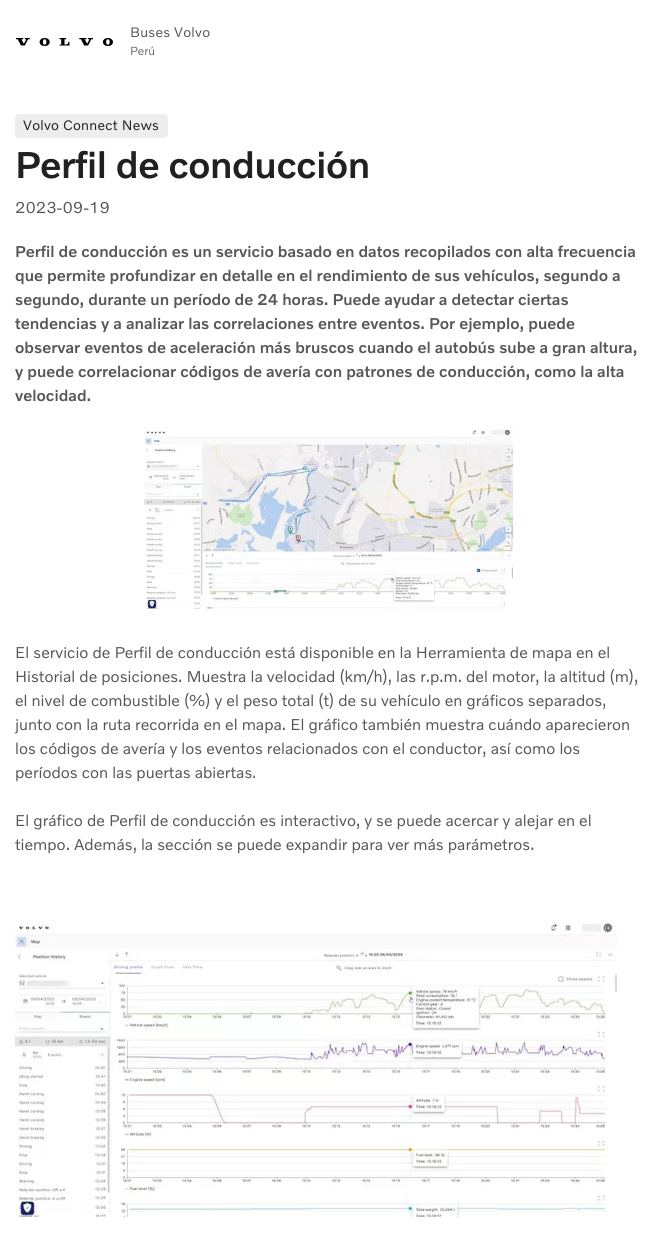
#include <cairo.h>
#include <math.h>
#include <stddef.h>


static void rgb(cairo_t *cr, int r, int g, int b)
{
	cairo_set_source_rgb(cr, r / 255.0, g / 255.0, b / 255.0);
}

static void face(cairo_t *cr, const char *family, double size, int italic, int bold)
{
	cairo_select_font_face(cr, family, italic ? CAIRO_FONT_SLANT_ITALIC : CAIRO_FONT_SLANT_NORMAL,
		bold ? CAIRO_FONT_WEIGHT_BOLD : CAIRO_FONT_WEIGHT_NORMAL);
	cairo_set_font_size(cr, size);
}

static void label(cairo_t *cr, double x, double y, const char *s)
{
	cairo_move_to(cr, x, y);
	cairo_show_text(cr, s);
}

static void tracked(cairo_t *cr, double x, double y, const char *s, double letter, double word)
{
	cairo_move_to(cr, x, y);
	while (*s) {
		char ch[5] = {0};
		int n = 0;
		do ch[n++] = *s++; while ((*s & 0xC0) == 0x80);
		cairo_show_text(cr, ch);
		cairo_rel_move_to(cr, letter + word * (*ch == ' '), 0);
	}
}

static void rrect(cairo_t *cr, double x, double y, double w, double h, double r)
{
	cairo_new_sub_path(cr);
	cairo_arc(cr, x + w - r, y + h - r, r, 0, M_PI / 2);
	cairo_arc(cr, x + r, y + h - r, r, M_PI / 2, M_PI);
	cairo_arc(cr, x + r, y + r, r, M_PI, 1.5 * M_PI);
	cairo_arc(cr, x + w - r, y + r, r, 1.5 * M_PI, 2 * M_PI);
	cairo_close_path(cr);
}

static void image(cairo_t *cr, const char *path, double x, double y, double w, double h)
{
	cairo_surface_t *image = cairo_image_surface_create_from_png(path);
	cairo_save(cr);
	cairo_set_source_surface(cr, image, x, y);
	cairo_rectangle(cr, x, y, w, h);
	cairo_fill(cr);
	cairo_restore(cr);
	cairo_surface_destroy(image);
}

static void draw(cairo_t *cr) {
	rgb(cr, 255, 255, 255);
	cairo_paint(cr);
	image(cr, "image0.png", 16, 38, 97, 8);
	face(cr, "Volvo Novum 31", 14, 0, 0);
	rgb(cr, 87, 87, 87);
	tracked(cr, 130, 37, "Buses Volvo", 0.25, 0);
	face(cr, "Volvo Novum 31", 12, 0, 0);
	rgb(cr, 107, 107, 107);
	label(cr, 130, 55, "Perú");
	rgb(cr, 237, 237, 237);
	rrect(cr, 15, 114, 153, 24, 4);
	cairo_fill(cr);
	face(cr, "Volvo Novum 31", 14, 0, 0);
	rgb(cr, 33, 33, 33);
	tracked(cr, 23, 130, "Volvo Connect News", 0.25, 0);
	face(cr, "Volvo Novum 31", 38, 0, 1);
	tracked(cr, 15, 178, "Perfil de conducción", -0.4, 0);
	face(cr, "Volvo Novum 31", 16, 0, 0);
	rgb(cr, 87, 87, 87);
	label(cr, 15, 213, "2023-09-19");
	face(cr, "Volvo Novum 31", 16, 0, 1);
	label(cr, 15, 257, "Perfil de conducción es un servicio basado en datos recopilados con alta frecuencia");
	label(cr, 15, 281, "que permite profundizar en detalle en el rendimiento de sus vehículos, segundo a");
	label(cr, 15, 305, "segundo, durante un período de 24 horas. Puede ayudar a detectar ciertas");
	label(cr, 15, 329, "tendencias y a analizar las correlaciones entre eventos. Por ejemplo, puede");
	label(cr, 15, 353, "observar eventos de aceleración más bruscos cuando el autobús sube a gran altura,");
	label(cr, 15, 377, "y puede correlacionar códigos de avería con patrones de conducción, como la alta");
	label(cr, 15, 401, "velocidad.");
	image(cr, "image1.png", 144, 428, 371, 181);
	face(cr, "Volvo Novum 31", 16, 0, 0);
	label(cr, 15, 658, "El servicio de Perfil de conducción está disponible en la Herramienta de mapa en el");
	label(cr, 15, 682, "Historial de posiciones. Muestra la velocidad (km/h), las r.p.m. del motor, la altitud (m),");
	label(cr, 15, 706, "el nivel de combustible (%) y el peso total (t) de su vehículo en gráficos separados,");
	label(cr, 15, 730, "junto con la ruta recorrida en el mapa. El gráfico también muestra cuándo aparecieron");
	label(cr, 15, 754, "los códigos de avería y los eventos relacionados con el conductor, así como los");
	label(cr, 15, 778, "períodos con las puertas abiertas.");
	label(cr, 15, 826, "El gráfico de Perfil de conducción es interactivo, y se puede acercar y alejar en el");
	label(cr, 15, 850, "tiempo. Además, la sección se puede expandir para ver más parámetros.");
	image(cr, "image2.png", 15, 921, 602, 296);
}

int main(void) {
	cairo_surface_t *surface = cairo_image_surface_create(CAIRO_FORMAT_RGB24, 657, 1238);
	cairo_t *cr = cairo_create(surface);
	cairo_font_options_t *options = cairo_font_options_create();
	cairo_font_options_set_hint_metrics(options, CAIRO_HINT_METRICS_OFF);
	cairo_font_options_set_hint_style(options, CAIRO_HINT_STYLE_NONE);
	cairo_set_font_options(cr, options);
	cairo_set_miter_limit(cr, 4);
	draw(cr);
	cairo_surface_write_to_png(surface, "render.png");
	cairo_font_options_destroy(options);
	cairo_destroy(cr);
	cairo_surface_destroy(surface);
	return 0;
}
